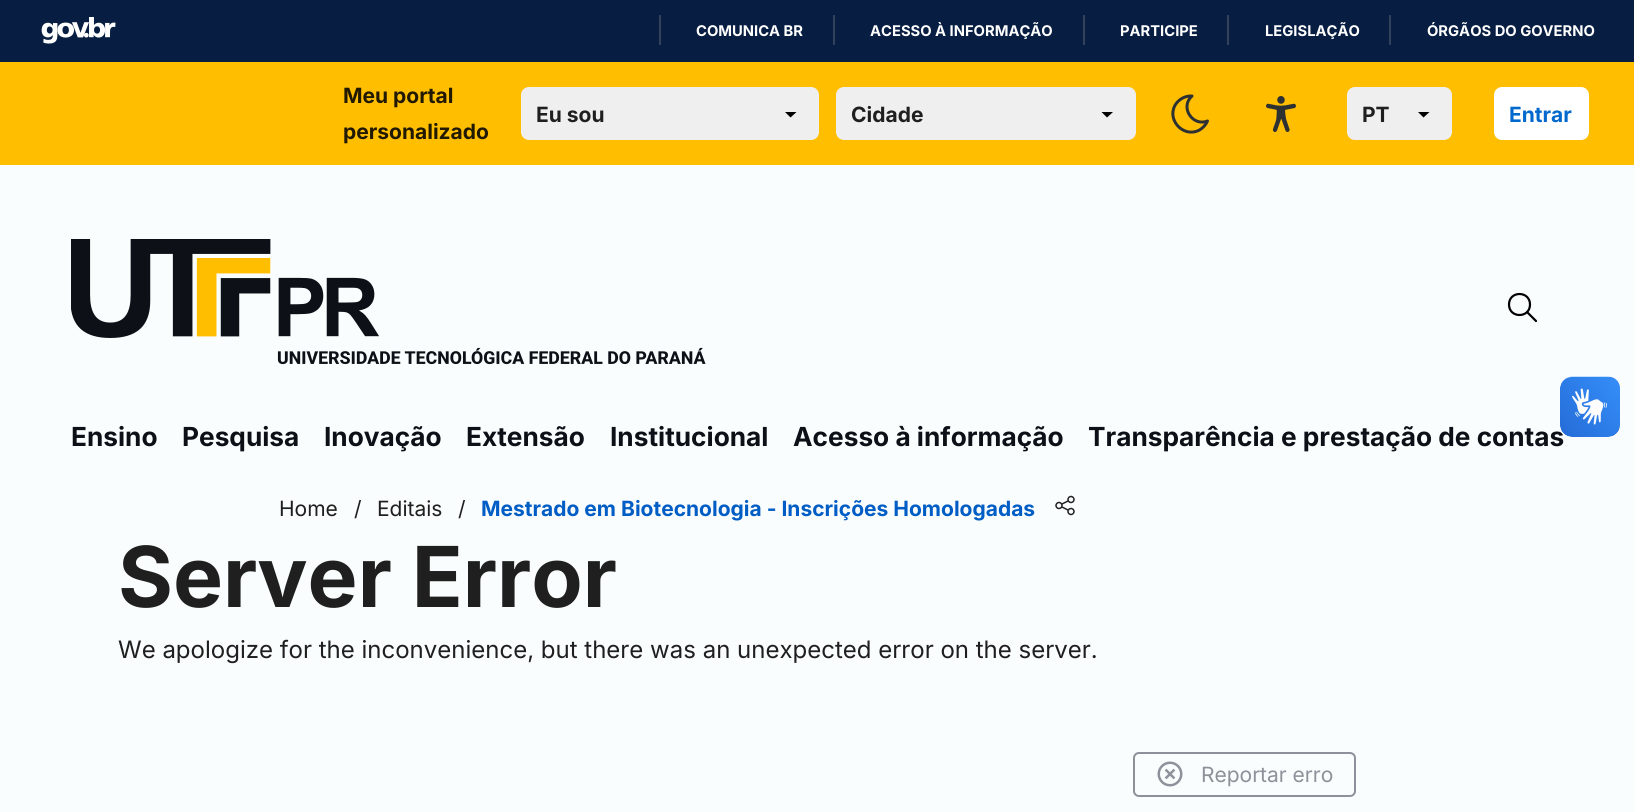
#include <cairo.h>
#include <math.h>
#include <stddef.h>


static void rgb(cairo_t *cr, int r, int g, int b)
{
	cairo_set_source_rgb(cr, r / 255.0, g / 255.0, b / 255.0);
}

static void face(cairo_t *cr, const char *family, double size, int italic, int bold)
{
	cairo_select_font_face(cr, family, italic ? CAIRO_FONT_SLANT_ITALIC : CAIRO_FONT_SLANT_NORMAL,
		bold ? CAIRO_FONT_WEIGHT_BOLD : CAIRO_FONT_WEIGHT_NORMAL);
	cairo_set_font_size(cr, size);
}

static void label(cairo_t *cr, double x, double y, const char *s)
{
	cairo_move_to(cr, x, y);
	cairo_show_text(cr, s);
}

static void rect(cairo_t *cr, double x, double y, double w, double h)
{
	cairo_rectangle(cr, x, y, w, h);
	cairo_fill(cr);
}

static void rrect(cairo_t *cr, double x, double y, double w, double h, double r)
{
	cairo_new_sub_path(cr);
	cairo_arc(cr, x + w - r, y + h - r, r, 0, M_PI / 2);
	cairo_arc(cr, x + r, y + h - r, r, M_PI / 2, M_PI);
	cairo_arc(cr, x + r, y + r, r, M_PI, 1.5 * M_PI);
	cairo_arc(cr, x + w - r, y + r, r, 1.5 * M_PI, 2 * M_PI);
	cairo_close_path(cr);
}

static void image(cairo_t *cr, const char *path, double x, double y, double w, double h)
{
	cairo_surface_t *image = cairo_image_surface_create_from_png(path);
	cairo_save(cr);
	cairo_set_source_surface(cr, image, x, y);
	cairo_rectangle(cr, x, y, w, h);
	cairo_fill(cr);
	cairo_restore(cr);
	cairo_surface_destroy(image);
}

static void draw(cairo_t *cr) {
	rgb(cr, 250, 253, 253);
	cairo_paint(cr);
	rgb(cr, 7, 29, 65);
	rect(cr, 0, 0, 1634, 62);
	image(cr, "image0.png", 41, 17, 75, 27);
	rgb(cr, 50, 66, 91);
	rect(cr, 659, 15, 2, 30);
	face(cr, "Inter", 14.75, 0, 1);
	rgb(cr, 255, 255, 255);
	label(cr, 696, 36, "COMUNICA BR");
	rgb(cr, 50, 66, 91);
	rect(cr, 833, 15, 2, 30);
	rgb(cr, 255, 255, 255);
	label(cr, 870, 36, "ACESSO À INFORMAÇÃO");
	rgb(cr, 50, 66, 91);
	rect(cr, 1083, 15, 2, 30);
	rgb(cr, 255, 255, 255);
	label(cr, 1120, 36, "PARTICIPE");
	rgb(cr, 50, 66, 91);
	rect(cr, 1227, 15, 2, 30);
	rgb(cr, 255, 255, 255);
	label(cr, 1265, 36, "LEGISLAÇÃO");
	rgb(cr, 50, 66, 91);
	rect(cr, 1389, 15, 2, 30);
	rgb(cr, 255, 255, 255);
	label(cr, 1427, 36, "ÓRGÃOS DO GOVERNO");
	rgb(cr, 255, 190, 0);
	rect(cr, 0, 62, 1634, 103);
	face(cr, "Inter", 21, 0, 1);
	rgb(cr, 33, 25, 0);
	label(cr, 343, 103, "Meu portal");
	label(cr, 343, 139, "personalizado");
	rgb(cr, 239, 239, 239);
	rrect(cr, 521, 87, 298, 53, 8);
	cairo_fill(cr);
	rgb(cr, 0, 0, 0);
	cairo_new_path(cr);
	cairo_move_to(cr, 785, 112);
	cairo_line_to(cr, 790.5, 117.5);
	cairo_line_to(cr, 796.5, 112);
	cairo_fill(cr);
	rgb(cr, 31, 31, 31);
	label(cr, 536, 122, "Eu sou");
	rgb(cr, 239, 239, 239);
	rrect(cr, 836, 87, 300, 53, 8);
	cairo_fill(cr);
	rgb(cr, 0, 0, 0);
	cairo_new_path(cr);
	cairo_move_to(cr, 1101.5, 112);
	cairo_line_to(cr, 1107, 117.5);
	cairo_line_to(cr, 1113, 112);
	cairo_fill(cr);
	rgb(cr, 31, 31, 31);
	label(cr, 851, 122, "Cidade");
	cairo_new_path(cr);
	cairo_move_to(cr, 1191, 96);
	cairo_line_to(cr, 1192, 96);
	cairo_curve_to(cr, 1179.5, 107, 1192.5, 127, 1207.5, 121);
	cairo_curve_to(cr, 1206, 124.5, 1203, 128, 1199.5, 130);
	cairo_curve_to(cr, 1182.5, 139, 1164.5, 117.5, 1177, 102.5);
	cairo_curve_to(cr, 1180.5, 98.5, 1185.5, 96, 1191, 96);
	cairo_close_path(cr);
	rgb(cr, 46, 49, 50);
	cairo_set_line_width(cr, 3);
	cairo_set_line_cap(cr, CAIRO_LINE_CAP_ROUND);
	cairo_set_line_join(cr, CAIRO_LINE_JOIN_ROUND);
	cairo_stroke(cr);
	image(cr, "image1.png", 1266, 96, 30, 36);
	rgb(cr, 239, 239, 239);
	rrect(cr, 1347, 87, 105, 53, 8);
	cairo_fill(cr);
	rgb(cr, 0, 0, 0);
	cairo_new_path(cr);
	cairo_move_to(cr, 1418, 112);
	cairo_line_to(cr, 1423.5, 117.5);
	cairo_line_to(cr, 1429.5, 112);
	cairo_fill(cr);
	rgb(cr, 31, 31, 31);
	label(cr, 1362, 122, "PT");
	rgb(cr, 255, 255, 255);
	rrect(cr, 1494, 87, 95, 53, 8);
	cairo_fill(cr);
	rgb(cr, 1, 105, 205);
	label(cr, 1509, 122, "Entrar");
	image(cr, "image2.png", 71, 239, 635, 126);
	cairo_new_path(cr);
	cairo_move_to(cr, 1536, 321);
	cairo_line_to(cr, 1527, 312);
	cairo_move_to(cr, 1509, 304.5);
	cairo_curve_to(cr, 1509, 318.5, 1530, 318.5, 1530, 304.5);
	cairo_curve_to(cr, 1530, 290.5, 1509, 290.5, 1509, 304.5);
	cairo_close_path(cr);
	rgb(cr, 0, 0, 0);
	cairo_set_line_width(cr, 2.2);
	cairo_stroke(cr);
	face(cr, "Inter", 26.25, 0, 1);
	rgb(cr, 13, 17, 23);
	label(cr, 71, 446, "Ensino");
	label(cr, 182, 446, "Pesquisa");
	label(cr, 324, 446, "Inovação");
	label(cr, 466, 446, "Extensão");
	label(cr, 610, 446, "Institucional");
	label(cr, 793, 446, "Acesso à informação");
	label(cr, 1088, 446, "Transparência e prestação de contas");
	face(cr, "Inter", 21, 0, 0);
	rgb(cr, 31, 31, 31);
	label(cr, 279, 516, "Home");
	label(cr, 354, 516, "/");
	label(cr, 377, 516, "Editais");
	label(cr, 458, 516, "/");
	face(cr, "Inter", 21, 0, 1);
	rgb(cr, 0, 93, 197);
	label(cr, 481, 516, "Mestrado em Biotecnologia - Inscrições Homologadas");
	image(cr, "image3.png", 1055, 495, 20, 21);
	face(cr, "Inter", 84, 0, 1);
	rgb(cr, 31, 31, 31);
	label(cr, 118, 607, "Server Error");
	face(cr, "Inter", 24, 0, 0);
	label(cr, 118, 658, "We apologize for the inconvenience, but there was an unexpected error on the server.");
	rrect(cr, 1134, 753, 221, 43, 5);
	rgb(cr, 141, 145, 153);
	cairo_set_line_width(cr, 2);
	cairo_set_line_cap(cr, CAIRO_LINE_CAP_BUTT);
	cairo_set_line_join(cr, CAIRO_LINE_JOIN_MITER);
	cairo_stroke(cr);
	image(cr, "image4.png", 1157, 761, 26, 26);
	face(cr, "Inter", 21, 0, 0);
	label(cr, 1201, 782, "Reportar erro");
	image(cr, "image5.png", 1560, 376, 60, 61);
	image(cr, "image6.png", 1560, 377, 60, 60);
}

int main(void) {
	cairo_surface_t *surface = cairo_image_surface_create(CAIRO_FORMAT_RGB24, 1634, 812);
	cairo_t *cr = cairo_create(surface);
	cairo_font_options_t *options = cairo_font_options_create();
	cairo_font_options_set_hint_metrics(options, CAIRO_HINT_METRICS_OFF);
	cairo_font_options_set_hint_style(options, CAIRO_HINT_STYLE_NONE);
	cairo_set_font_options(cr, options);
	cairo_set_miter_limit(cr, 4);
	draw(cr);
	cairo_surface_write_to_png(surface, "render.png");
	cairo_font_options_destroy(options);
	cairo_destroy(cr);
	cairo_surface_destroy(surface);
	return 0;
}
